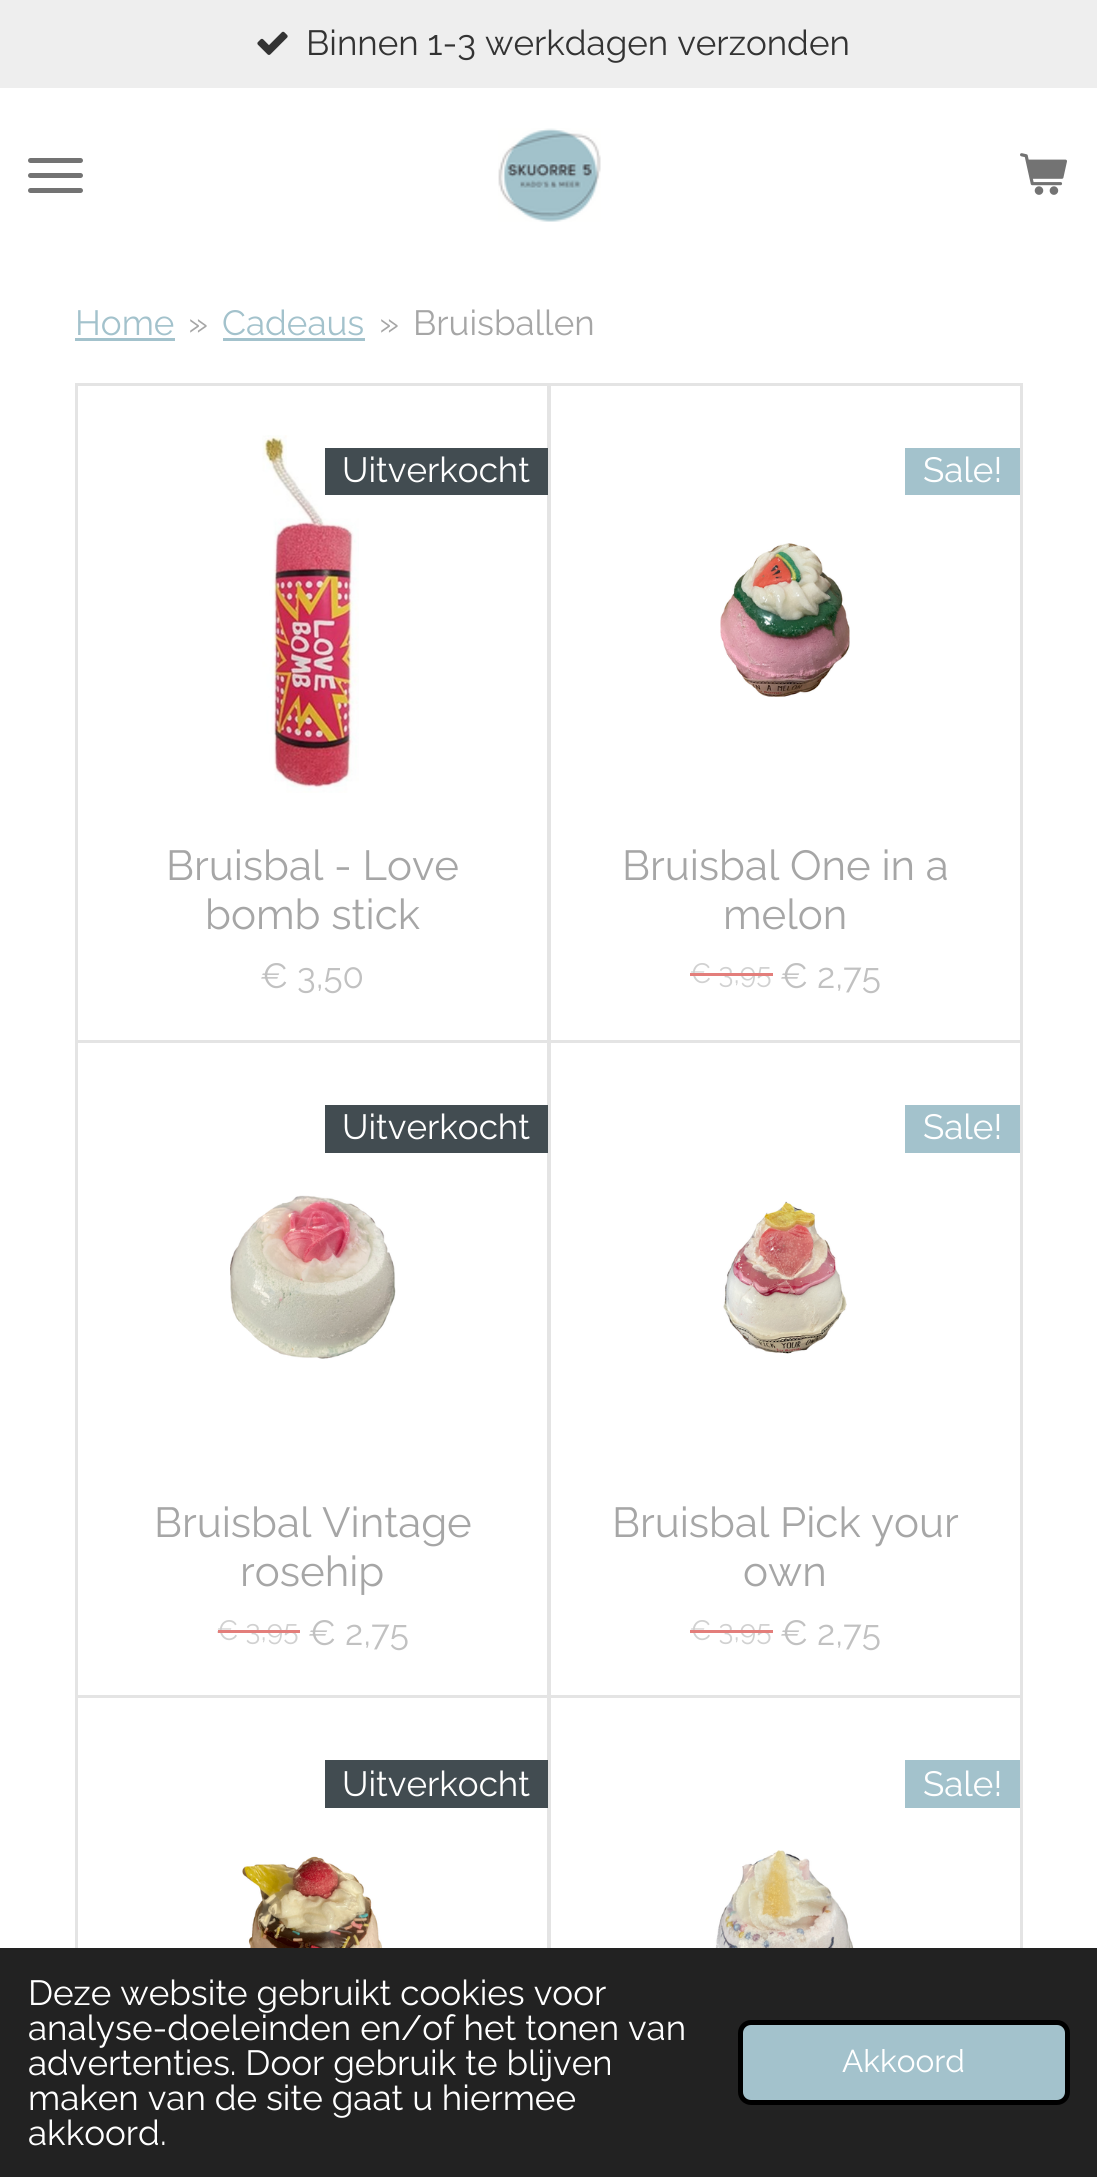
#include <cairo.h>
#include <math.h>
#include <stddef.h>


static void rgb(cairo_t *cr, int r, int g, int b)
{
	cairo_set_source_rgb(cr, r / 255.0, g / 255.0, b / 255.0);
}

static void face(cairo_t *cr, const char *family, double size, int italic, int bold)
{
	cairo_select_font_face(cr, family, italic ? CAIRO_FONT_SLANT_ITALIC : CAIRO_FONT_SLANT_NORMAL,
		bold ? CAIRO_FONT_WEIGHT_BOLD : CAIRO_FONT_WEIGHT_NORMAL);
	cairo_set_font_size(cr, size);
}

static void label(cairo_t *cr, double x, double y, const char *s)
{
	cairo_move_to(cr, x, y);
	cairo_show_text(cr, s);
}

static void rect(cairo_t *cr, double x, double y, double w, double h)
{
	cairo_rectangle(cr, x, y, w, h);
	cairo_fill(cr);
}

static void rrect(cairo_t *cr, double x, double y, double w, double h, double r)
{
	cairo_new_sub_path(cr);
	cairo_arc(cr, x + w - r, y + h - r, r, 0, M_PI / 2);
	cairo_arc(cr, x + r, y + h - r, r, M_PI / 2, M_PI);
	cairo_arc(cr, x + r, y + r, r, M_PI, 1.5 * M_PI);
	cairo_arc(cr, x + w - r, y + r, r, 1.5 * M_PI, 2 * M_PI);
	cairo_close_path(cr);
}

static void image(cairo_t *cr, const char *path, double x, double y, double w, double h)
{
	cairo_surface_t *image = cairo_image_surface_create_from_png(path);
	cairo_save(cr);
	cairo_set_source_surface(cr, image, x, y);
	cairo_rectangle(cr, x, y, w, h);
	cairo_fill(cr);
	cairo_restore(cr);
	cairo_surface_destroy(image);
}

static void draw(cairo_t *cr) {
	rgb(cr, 255, 255, 255);
	cairo_paint(cr);
	rgb(cr, 238, 238, 238);
	rect(cr, 0, 0, 1097, 88);
	image(cr, "image0.png", 257, 31, 31, 24);
	face(cr, "Raleway", 35, 0, 0);
	rgb(cr, 51, 51, 51);
	label(cr, 306, 55, "Binnen 1-3 werkdagen verzonden");
	rgb(cr, 115, 115, 115);
	rrect(cr, 28, 173, 55, 5, 2.5);
	cairo_fill(cr);
	rrect(cr, 28, 158, 55, 5, 2.5);
	cairo_fill(cr);
	rrect(cr, 28, 188, 55, 5, 2.5);
	cairo_fill(cr);
	image(cr, "image1.png", 498, 128, 103, 94);
	image(cr, "image2.png", 1020, 153, 47, 42);
	rgb(cr, 163, 194, 204);
	label(cr, 75, 335, "Home");
	rect(cr, 75, 338, 100, 3);
	rgb(cr, 166, 166, 166);
	label(cr, 188, 335, "»");
	rgb(cr, 163, 194, 204);
	label(cr, 222, 335, "Cadeaus");
	rect(cr, 223, 338, 142, 3);
	rgb(cr, 166, 166, 166);
	label(cr, 379, 335, "»");
	label(cr, 413, 335, "Bruisballen");
	cairo_rectangle(cr, 76.5, 384.5, 472, 657);
	rgb(cr, 228, 228, 228);
	cairo_set_line_width(cr, 3);
	cairo_stroke(cr);
	image(cr, "image3.png", 262, 435, 97, 358);
	rgb(cr, 66, 76, 81);
	rect(cr, 325, 448, 223, 47);
	rgb(cr, 255, 255, 255);
	label(cr, 342, 482, "Uitverkocht");
	face(cr, "Raleway", 42, 0, 0);
	rgb(cr, 166, 166, 166);
	label(cr, 166, 880, "Bruisbal - Love");
	label(cr, 205, 929, "bomb stick");
	face(cr, "Raleway", 35, 0, 0);
	rgb(cr, 193, 193, 193);
	label(cr, 260, 988, "€ 3,50");
	cairo_rectangle(cr, 549.5, 384.5, 472, 657);
	rgb(cr, 228, 228, 228);
	cairo_stroke(cr);
	rgb(cr, 163, 194, 204);
	rect(cr, 905, 448, 115, 47);
	rgb(cr, 255, 255, 255);
	label(cr, 923, 482, "Sale!");
	image(cr, "image4.png", 720, 543, 130, 154);
	face(cr, "Raleway", 42, 0, 0);
	rgb(cr, 166, 166, 166);
	label(cr, 622, 880, "Bruisbal One in a");
	label(cr, 723, 929, "melon");
	face(cr, "Raleway", 28, 0, 0);
	rgb(cr, 209, 209, 209);
	label(cr, 689, 983, "€ 3,95");
	rgb(cr, 227, 126, 123);
	rect(cr, 690, 973, 83, 3);
	face(cr, "Raleway", 35, 0, 0);
	rgb(cr, 193, 193, 193);
	label(cr, 780, 988, "€ 2,75");
	cairo_rectangle(cr, 76.5, 1041.5, 472, 655);
	rgb(cr, 228, 228, 228);
	cairo_stroke(cr);
	rgb(cr, 66, 76, 81);
	rect(cr, 325, 1105, 223, 48);
	rgb(cr, 255, 255, 255);
	label(cr, 342, 1139, "Uitverkocht");
	image(cr, "image5.png", 230, 1195, 166, 164);
	face(cr, "Raleway", 42, 0, 0);
	rgb(cr, 166, 166, 166);
	label(cr, 154, 1537, "Bruisbal Vintage");
	label(cr, 240, 1586, "rosehip");
	face(cr, "Raleway", 28, 0, 0);
	rgb(cr, 209, 209, 209);
	label(cr, 216, 1640, "€ 3,95");
	rgb(cr, 227, 126, 123);
	rect(cr, 218, 1630, 82, 3);
	face(cr, "Raleway", 35, 0, 0);
	rgb(cr, 193, 193, 193);
	label(cr, 308, 1645, "€ 2,75");
	cairo_rectangle(cr, 549.5, 1041.5, 472, 655);
	rgb(cr, 228, 228, 228);
	cairo_stroke(cr);
	rgb(cr, 163, 194, 204);
	rect(cr, 905, 1105, 115, 48);
	rgb(cr, 255, 255, 255);
	label(cr, 923, 1139, "Sale!");
	image(cr, "image6.png", 723, 1201, 124, 153);
	face(cr, "Raleway", 42, 0, 0);
	rgb(cr, 166, 166, 166);
	label(cr, 612, 1537, "Bruisbal Pick your");
	label(cr, 743, 1586, "own");
	face(cr, "Raleway", 28, 0, 0);
	rgb(cr, 209, 209, 209);
	label(cr, 689, 1640, "€ 3,95");
	rgb(cr, 227, 126, 123);
	rect(cr, 690, 1630, 83, 3);
	face(cr, "Raleway", 35, 0, 0);
	rgb(cr, 193, 193, 193);
	label(cr, 780, 1645, "€ 2,75");
	cairo_rectangle(cr, 76.5, 1696.5, 472, 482);
	rgb(cr, 228, 228, 228);
	cairo_stroke(cr);
	rgb(cr, 66, 76, 81);
	rect(cr, 325, 1760, 223, 48);
	rgb(cr, 255, 255, 255);
	label(cr, 342, 1796, "Uitverkocht");
	image(cr, "image7.png", 242, 1856, 141, 92);
	cairo_rectangle(cr, 549.5, 1696.5, 472, 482);
	rgb(cr, 228, 228, 228);
	cairo_stroke(cr);
	rgb(cr, 163, 194, 204);
	rect(cr, 905, 1760, 115, 48);
	rgb(cr, 255, 255, 255);
	label(cr, 923, 1796, "Sale!");
	image(cr, "image8.png", 715, 1850, 139, 98);
	rgb(cr, 34, 34, 34);
	rect(cr, 0, 1948, 1097, 229);
	rgb(cr, 255, 255, 255);
	label(cr, 28, 2005, "Deze website gebruikt cookies voor");
	label(cr, 28, 2040, "analyse-doeleinden en/of het tonen van");
	label(cr, 28, 2075, "advertenties. Door gebruik te blijven");
	label(cr, 28, 2110, "maken van de site gaat u hiermee");
	label(cr, 28, 2145, "akkoord.");
	rgb(cr, 163, 194, 204);
	rrect(cr, 740.5, 2022.5, 327, 80, 10.5);
	cairo_fill_preserve(cr);
	rgb(cr, 0, 0, 0);
	cairo_set_line_width(cr, 5);
	cairo_stroke(cr);
	face(cr, "Raleway", 31.5, 0, 0);
	rgb(cr, 255, 255, 255);
	label(cr, 842, 2072, "Akkoord");
}

int main(void) {
	cairo_surface_t *surface = cairo_image_surface_create(CAIRO_FORMAT_RGB24, 1097, 2177);
	cairo_t *cr = cairo_create(surface);
	cairo_font_options_t *options = cairo_font_options_create();
	cairo_font_options_set_hint_metrics(options, CAIRO_HINT_METRICS_OFF);
	cairo_font_options_set_hint_style(options, CAIRO_HINT_STYLE_NONE);
	cairo_set_font_options(cr, options);
	cairo_set_miter_limit(cr, 4);
	draw(cr);
	cairo_surface_write_to_png(surface, "render.png");
	cairo_font_options_destroy(options);
	cairo_destroy(cr);
	cairo_surface_destroy(surface);
	return 0;
}
